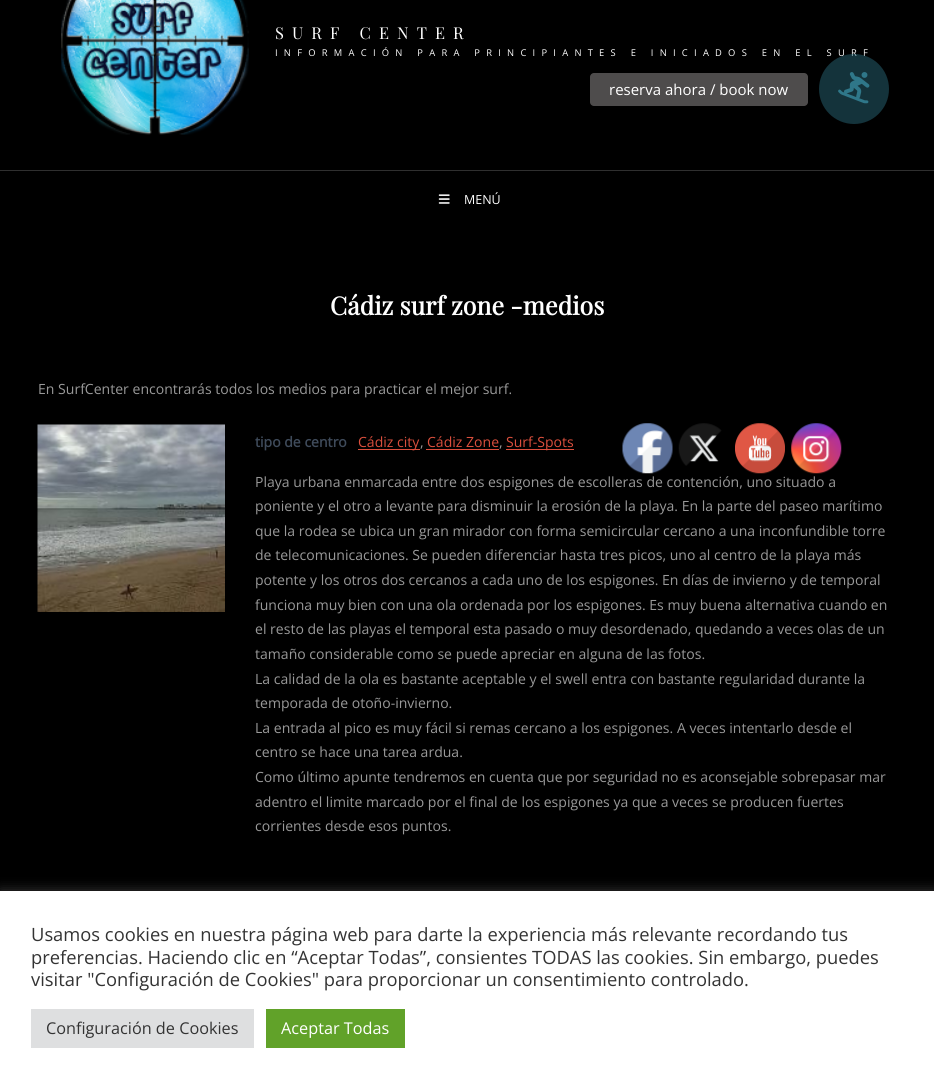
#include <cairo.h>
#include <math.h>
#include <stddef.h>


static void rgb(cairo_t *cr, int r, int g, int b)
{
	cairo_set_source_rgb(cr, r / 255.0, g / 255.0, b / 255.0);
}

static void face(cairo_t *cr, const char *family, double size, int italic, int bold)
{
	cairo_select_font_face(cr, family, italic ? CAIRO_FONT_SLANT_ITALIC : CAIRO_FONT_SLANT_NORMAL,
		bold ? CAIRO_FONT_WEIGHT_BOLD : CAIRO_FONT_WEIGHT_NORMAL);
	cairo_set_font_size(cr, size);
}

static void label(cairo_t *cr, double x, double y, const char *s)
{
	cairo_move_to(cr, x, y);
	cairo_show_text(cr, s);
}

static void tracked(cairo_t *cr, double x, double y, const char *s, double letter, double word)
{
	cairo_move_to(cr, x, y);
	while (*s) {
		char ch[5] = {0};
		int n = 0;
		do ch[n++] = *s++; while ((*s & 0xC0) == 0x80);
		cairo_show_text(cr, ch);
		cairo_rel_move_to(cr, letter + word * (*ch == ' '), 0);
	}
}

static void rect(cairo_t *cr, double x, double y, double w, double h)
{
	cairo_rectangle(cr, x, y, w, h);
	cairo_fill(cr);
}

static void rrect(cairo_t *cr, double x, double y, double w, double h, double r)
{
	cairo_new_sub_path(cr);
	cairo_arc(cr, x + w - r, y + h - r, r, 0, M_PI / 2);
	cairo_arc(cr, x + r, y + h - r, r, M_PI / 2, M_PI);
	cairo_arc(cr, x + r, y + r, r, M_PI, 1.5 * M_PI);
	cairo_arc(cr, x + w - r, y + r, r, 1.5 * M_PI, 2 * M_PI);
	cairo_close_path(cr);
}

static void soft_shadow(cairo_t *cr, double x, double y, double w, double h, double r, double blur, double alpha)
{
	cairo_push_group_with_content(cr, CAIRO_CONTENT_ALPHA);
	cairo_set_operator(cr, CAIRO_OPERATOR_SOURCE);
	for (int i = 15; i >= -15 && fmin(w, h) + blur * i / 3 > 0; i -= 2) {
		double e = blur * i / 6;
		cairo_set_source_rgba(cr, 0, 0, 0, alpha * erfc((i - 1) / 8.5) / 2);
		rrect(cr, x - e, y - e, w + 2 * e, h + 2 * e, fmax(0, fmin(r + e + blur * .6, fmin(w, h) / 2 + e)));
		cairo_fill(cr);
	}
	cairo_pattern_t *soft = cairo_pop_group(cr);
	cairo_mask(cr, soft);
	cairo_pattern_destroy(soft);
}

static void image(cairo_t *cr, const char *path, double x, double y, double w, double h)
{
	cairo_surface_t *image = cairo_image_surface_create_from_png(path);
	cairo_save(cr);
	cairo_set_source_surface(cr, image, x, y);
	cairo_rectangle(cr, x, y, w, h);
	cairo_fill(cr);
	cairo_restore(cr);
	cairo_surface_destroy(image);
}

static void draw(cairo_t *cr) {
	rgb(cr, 0, 0, 0);
	cairo_paint(cr);
	image(cr, "image0.png", 61, 0, 188, 135);
	face(cr, "Playfair Display", 16.4, 0, 0);
	rgb(cr, 255, 255, 255);
	tracked(cr, 275, 39, "SURF CENTER", 8.1, 0);
	face(cr, "Open Sans", 9.38, 0, 0);
	tracked(cr, 275, 56, "INFORMACIÓN PARA PRINCIPIANTES E INICIADOS EN EL SURF", 6.25, 0);
	rgb(cr, 47, 47, 47);
	rect(cr, 0, 170, 934, 1);
	image(cr, "image1.png", 438, 194, 12, 10);
	face(cr, "Open Sans", 12.5, 0, 0);
	rgb(cr, 255, 255, 255);
	label(cr, 464, 204, "MENÚ");
	face(cr, "Playfair Display", 25, 0, 1);
	label(cr, 330, 315, "Cádiz surf zone -medios");
	face(cr, "Open Sans", 14.05, 0, 0);
	rgb(cr, 153, 153, 153);
	label(cr, 38, 394, "En SurfCenter encontrarás todos los medios para practicar el mejor surf.");
	image(cr, "image2.png", 37, 424, 188, 188);
	face(cr, "Open Sans", 14.05, 0, 1);
	rgb(cr, 63, 75, 91);
	label(cr, 255, 447, "tipo de centro");
	rgb(cr, 219, 79, 61);
	rect(cr, 358, 449, 62, 1);
	face(cr, "Open Sans", 14.05, 0, 0);
	label(cr, 358, 447, "Cádiz city");
	rgb(cr, 153, 153, 153);
	label(cr, 420, 447, ",");
	rgb(cr, 219, 79, 61);
	label(cr, 427, 447, "Cádiz Zone");
	rgb(cr, 153, 153, 153);
	label(cr, 499, 447, ",");
	rgb(cr, 219, 79, 61);
	rect(cr, 426, 449, 73, 1);
	rect(cr, 506, 449, 68, 1);
	label(cr, 506, 447, "Surf-Spots");
	rgb(cr, 153, 153, 153);
	label(cr, 255, 487, "Playa urbana enmarcada entre dos espigones de escolleras de contención, uno situado a");
	label(cr, 255, 511, "poniente y el otro a levante para disminuir la erosión de la playa. En la parte del paseo marítimo");
	label(cr, 255, 536, "que la rodea se ubica un gran mirador con forma semicircular cercano a una inconfundible torre");
	label(cr, 255, 560, "de telecomunicaciones. Se pueden diferenciar hasta tres picos, uno al centro de la playa más");
	label(cr, 255, 585, "potente y los otros dos cercanos a cada uno de los espigones. En días de invierno y de temporal");
	label(cr, 255, 610, "funciona muy bien con una ola ordenada por los espigones. Es muy buena alternativa cuando en");
	label(cr, 255, 634, "el resto de las playas el temporal esta pasado o muy desordenado, quedando a veces olas de un");
	label(cr, 255, 659, "tamaño considerable como se puede apreciar en alguna de las fotos.");
	label(cr, 255, 684, "La calidad de la ola es bastante aceptable y el swell entra con bastante regularidad durante la");
	label(cr, 255, 708, "temporada de otoño-invierno.");
	label(cr, 255, 733, "La entrada al pico es muy fácil si remas cercano a los espigones. A veces intentarlo desde el");
	label(cr, 255, 757, "centro se hace una tarea ardua.");
	label(cr, 255, 782, "Como último apunte tendremos en cuenta que por seguridad no es aconsejable sobrepasar mar");
	label(cr, 255, 807, "adentro el limite marcado por el final de los espigones ya que a veces se producen fuertes");
	label(cr, 255, 831, "corrientes desde esos puntos.");
	cairo_set_source_rgba(cr, 0.184, 0.467, 0.537, 0.43);
	cairo_new_path(cr);
	cairo_arc(cr, 854, 89, 35, 0, 2 * M_PI);
	cairo_fill(cr);
	rgb(cr, 78, 76, 76);
	rrect(cr, 590, 73, 218, 33, 4);
	cairo_fill(cr);
	face(cr, "Open Sans", 15, 0, 0);
	rgb(cr, 255, 255, 255);
	label(cr, 609, 95, "reserva ahora / book now");
	image(cr, "image3.png", 838, 72, 32, 32);
	image(cr, "image4.png", 622, 423, 51, 51);
	image(cr, "image5.png", 678, 423, 44, 43);
	image(cr, "image6.png", 735, 423, 50, 51);
	image(cr, "image7.png", 791, 423, 51, 51);
	rgb(cr, 172, 171, 171);
	soft_shadow(cr, 0, 890, 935, 194, 0, 6, 0.3);
	rgb(cr, 255, 255, 255);
	rect(cr, 0, 891, 934, 194);
	face(cr, "Open Sans", 18.35, 0, 0);
	rgb(cr, 51, 51, 51);
	label(cr, 31, 941, "Usamos cookies en nuestra página web para darte la experiencia más relevante recordando tus");
	label(cr, 31, 964, "preferencias. Haciendo clic en “Aceptar Todas”, consientes TODAS las cookies. Sin embargo, puedes");
	label(cr, 31, 986, "visitar \"Configuración de Cookies\" para proporcionar un consentimiento controlado.");
	rgb(cr, 222, 223, 224);
	rect(cr, 31, 1009, 223, 39);
	face(cr, "Open Sans", 16.25, 0, 0);
	rgb(cr, 51, 51, 51);
	label(cr, 46, 1034, "Configuración de Cookies");
	rgb(cr, 97, 162, 41);
	rect(cr, 266, 1009, 139, 39);
	rgb(cr, 255, 255, 255);
	label(cr, 281, 1034, "Aceptar Todas");
}

int main(void) {
	cairo_surface_t *surface = cairo_image_surface_create(CAIRO_FORMAT_RGB24, 934, 1085);
	cairo_t *cr = cairo_create(surface);
	cairo_font_options_t *options = cairo_font_options_create();
	cairo_font_options_set_hint_metrics(options, CAIRO_HINT_METRICS_OFF);
	cairo_font_options_set_hint_style(options, CAIRO_HINT_STYLE_NONE);
	cairo_set_font_options(cr, options);
	cairo_set_miter_limit(cr, 4);
	draw(cr);
	cairo_surface_write_to_png(surface, "render.png");
	cairo_font_options_destroy(options);
	cairo_destroy(cr);
	cairo_surface_destroy(surface);
	return 0;
}
